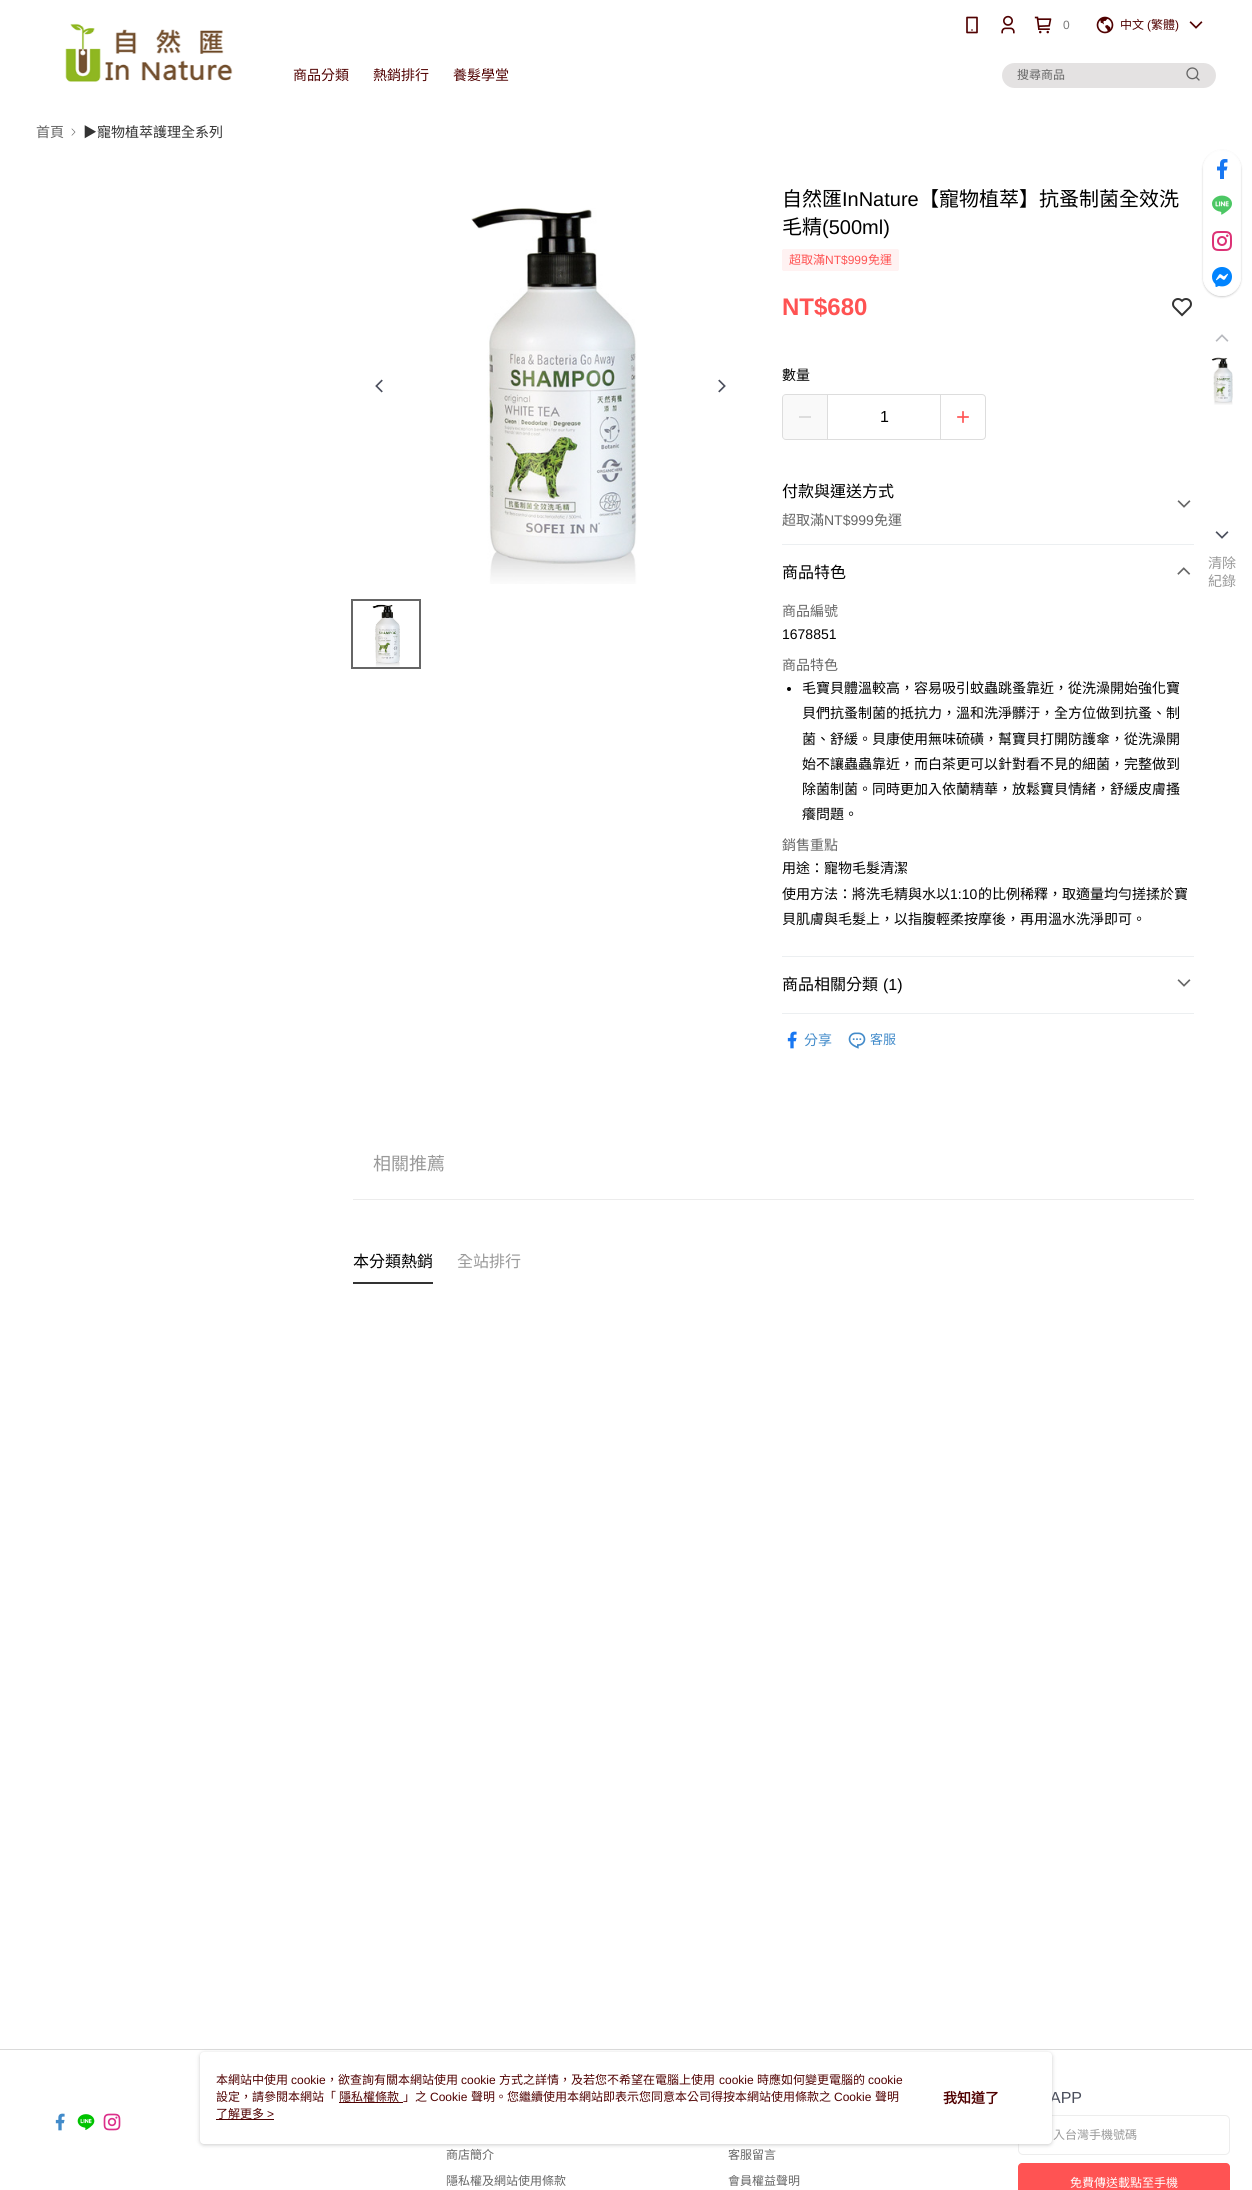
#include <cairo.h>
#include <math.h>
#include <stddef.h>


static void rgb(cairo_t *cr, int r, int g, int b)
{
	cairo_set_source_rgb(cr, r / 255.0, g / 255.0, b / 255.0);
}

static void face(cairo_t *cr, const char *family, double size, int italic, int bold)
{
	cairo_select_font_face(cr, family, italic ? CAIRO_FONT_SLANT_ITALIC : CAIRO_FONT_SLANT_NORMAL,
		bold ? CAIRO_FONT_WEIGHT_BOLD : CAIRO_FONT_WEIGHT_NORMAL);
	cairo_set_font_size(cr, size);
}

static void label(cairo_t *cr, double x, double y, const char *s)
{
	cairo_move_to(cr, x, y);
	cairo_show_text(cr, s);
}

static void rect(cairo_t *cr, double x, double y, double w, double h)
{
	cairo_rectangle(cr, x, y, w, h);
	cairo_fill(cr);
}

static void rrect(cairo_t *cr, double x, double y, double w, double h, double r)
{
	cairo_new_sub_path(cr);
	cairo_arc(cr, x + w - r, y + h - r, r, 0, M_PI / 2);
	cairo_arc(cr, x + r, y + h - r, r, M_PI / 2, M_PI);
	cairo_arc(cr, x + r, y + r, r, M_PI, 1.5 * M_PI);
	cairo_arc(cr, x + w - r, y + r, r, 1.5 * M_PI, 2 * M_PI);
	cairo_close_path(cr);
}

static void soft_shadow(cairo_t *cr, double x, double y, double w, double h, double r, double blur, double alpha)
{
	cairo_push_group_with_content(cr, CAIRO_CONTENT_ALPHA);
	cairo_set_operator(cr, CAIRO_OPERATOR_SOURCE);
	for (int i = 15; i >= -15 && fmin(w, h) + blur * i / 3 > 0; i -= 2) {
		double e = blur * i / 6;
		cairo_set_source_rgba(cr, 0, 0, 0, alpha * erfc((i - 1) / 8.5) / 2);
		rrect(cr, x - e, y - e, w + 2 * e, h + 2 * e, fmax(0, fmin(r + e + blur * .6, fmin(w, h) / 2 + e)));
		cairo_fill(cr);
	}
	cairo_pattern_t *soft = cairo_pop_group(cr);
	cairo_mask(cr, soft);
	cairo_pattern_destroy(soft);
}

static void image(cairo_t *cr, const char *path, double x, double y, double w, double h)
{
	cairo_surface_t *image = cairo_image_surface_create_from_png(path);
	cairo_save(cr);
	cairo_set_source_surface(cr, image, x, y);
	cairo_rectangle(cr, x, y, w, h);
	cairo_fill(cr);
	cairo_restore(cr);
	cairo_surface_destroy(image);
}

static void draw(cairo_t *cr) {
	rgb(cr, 255, 255, 255);
	cairo_paint(cr);
	image(cr, "image0.png", 65, 23, 168, 59);
	image(cr, "image1.png", 966, 16, 12, 18);
	image(cr, "image2.png", 1001, 15, 14, 19);
	image(cr, "image3.png", 1034, 16, 18, 18);
	face(cr, "Liberation Sans", 12, 0, 0);
	rgb(cr, 122, 122, 122);
	label(cr, 1063, 29, "0");
	image(cr, "image4.png", 1096, 16, 18, 18);
	face(cr, "Noto Sans CJK TC", 12, 0, 0);
	rgb(cr, 80, 1, 1);
	label(cr, 1120, 29, "中文");
	face(cr, "Liberation Sans", 12, 0, 0);
	label(cr, 1147, 29, "(");
	face(cr, "Noto Sans CJK TC", 12, 0, 0);
	label(cr, 1151, 29, "繁體");
	face(cr, "Liberation Sans", 12, 0, 0);
	label(cr, 1175, 29, ")");
	image(cr, "image5.png", 1189, 21, 14, 8);
	face(cr, "Noto Sans CJK TC", 14, 0, 0);
	label(cr, 293, 80, "商品分類");
	label(cr, 373, 80, "熱銷排行");
	label(cr, 453, 80, "養髮學堂");
	rgb(cr, 228, 226, 226);
	rrect(cr, 1002, 63, 214, 25, 12.5);
	cairo_fill(cr);
	face(cr, "Noto Sans CJK TC", 12, 0, 0);
	rgb(cr, 102, 102, 102);
	label(cr, 1017, 79, "搜尋商品");
	image(cr, "image6.png", 1186, 67, 14, 14);
	face(cr, "Noto Sans CJK TC", 14, 0, 0);
	label(cr, 36, 137, "首頁");
	image(cr, "image7.png", 71, 128, 5, 8);
	rgb(cr, 51, 51, 51);
	label(cr, 83, 137, "▶寵物植萃護理全系列");
	image(cr, "image8.png", 375, 379, 8, 14);
	image(cr, "image9.png", 471, 208, 166, 376);
	image(cr, "image10.png", 718, 379, 8, 14);
	image(cr, "image11.png", 372, 604, 28, 63);
	cairo_rectangle(cr, 352, 600, 68, 68);
	rgb(cr, 102, 102, 102);
	cairo_stroke(cr);
	face(cr, "Noto Sans CJK TC", 20, 0, 0);
	rgb(cr, 0, 0, 0);
	label(cr, 782, 206, "自然匯");
	face(cr, "Liberation Sans", 20, 0, 0);
	label(cr, 842, 206, "InNature");
	face(cr, "Noto Sans CJK TC", 20, 0, 0);
	label(cr, 919, 206, "【寵物植萃】抗蚤制菌全效洗");
	label(cr, 782, 234, "毛精");
	face(cr, "Liberation Sans", 20, 0, 0);
	label(cr, 822, 234, "(500ml)");
	rgb(cr, 255, 242, 242);
	rrect(cr, 782.5, 249.5, 116, 21, 1.5);
	cairo_fill_preserve(cr);
	cairo_set_line_width(cr, 1);
	cairo_stroke(cr);
	face(cr, "Noto Sans CJK TC", 12, 0, 0);
	rgb(cr, 255, 83, 83);
	label(cr, 789, 264, "超取滿");
	face(cr, "Liberation Sans", 12, 0, 0);
	label(cr, 825, 264, "NT$999");
	face(cr, "Noto Sans CJK TC", 12, 0, 0);
	label(cr, 868, 264, "免運");
	face(cr, "Liberation Sans", 24, 0, 1);
	label(cr, 782, 315, "NT$680");
	image(cr, "image12.png", 1172, 298, 20, 19);
	face(cr, "Noto Sans CJK TC", 14, 0, 0);
	rgb(cr, 0, 0, 0);
	label(cr, 782, 380, "數量");
	rrect(cr, 782.5, 394.5, 203, 45, 3.5);
	rgb(cr, 221, 221, 221);
	cairo_stroke(cr);
	cairo_set_source_rgba(cr, 0.945, 0.945, 0.945, 0.4);
	rect(cr, 783, 395, 44, 44);
	rgb(cr, 221, 221, 221);
	rect(cr, 799, 416, 12, 2);
	rect(cr, 940, 395, 1, 44);
	rect(cr, 827, 395, 1, 44);
	face(cr, "Liberation Sans", 16, 0, 0);
	rgb(cr, 0, 0, 0);
	label(cr, 880, 422, "1");
	image(cr, "image13.png", 957, 411, 12, 12);
	rgb(cr, 236, 239, 241);
	rect(cr, 782, 544, 412, 1);
	face(cr, "Noto Sans CJK TC", 16, 0, 0);
	rgb(cr, 0, 0, 0);
	label(cr, 782, 497, "付款與運送方式");
	face(cr, "Noto Sans CJK TC", 14, 0, 0);
	rgb(cr, 102, 102, 102);
	label(cr, 782, 525, "超取滿");
	face(cr, "Liberation Sans", 14, 0, 0);
	label(cr, 824, 525, "NT$999");
	face(cr, "Noto Sans CJK TC", 14, 0, 0);
	label(cr, 874, 525, "免運");
	image(cr, "image14.png", 1177, 500, 14, 8);
	rgb(cr, 236, 239, 241);
	rect(cr, 782, 956, 412, 1);
	face(cr, "Noto Sans CJK TC", 16, 0, 0);
	rgb(cr, 0, 0, 0);
	label(cr, 782, 578, "商品特色");
	image(cr, "image15.png", 1177, 567, 14, 8);
	face(cr, "Noto Sans CJK TC", 14, 0, 0);
	rgb(cr, 102, 102, 102);
	label(cr, 782, 616, "商品編號");
	face(cr, "Liberation Sans", 14, 0, 0);
	rgb(cr, 0, 0, 0);
	label(cr, 782, 639, "1678851");
	face(cr, "Noto Sans CJK TC", 14, 0, 0);
	rgb(cr, 102, 102, 102);
	label(cr, 782, 670, "商品特色");
	rgb(cr, 0, 0, 0);
	cairo_new_path(cr);
	cairo_arc(cr, 789, 689, 2, 0, 2 * M_PI);
	cairo_fill(cr);
	label(cr, 802, 693, "毛寶貝體溫較高，容易吸引蚊蟲跳蚤靠近，從洗澡開始強化寶");
	label(cr, 802, 718, "貝們抗蚤制菌的抵抗力，溫和洗淨髒汙，全方位做到抗蚤、制");
	label(cr, 802, 744, "菌、舒緩。貝康使用無味硫磺，幫寶貝打開防護傘，從洗澡開");
	label(cr, 802, 769, "始不讓蟲蟲靠近，而白茶更可以針對看不見的細菌，完整做到");
	label(cr, 802, 794, "除菌制菌。同時更加入依蘭精華，放鬆寶貝情緒，舒緩皮膚搔");
	label(cr, 802, 819, "癢問題。");
	rgb(cr, 102, 102, 102);
	label(cr, 782, 850, "銷售重點");
	rgb(cr, 0, 0, 0);
	label(cr, 782, 873, "用途：寵物毛髮清潔");
	label(cr, 782, 899, "使用方法：將洗毛精與水以");
	face(cr, "Liberation Sans", 14, 0, 0);
	label(cr, 950, 899, "1:10");
	face(cr, "Noto Sans CJK TC", 14, 0, 0);
	label(cr, 978, 899, "的比例稀釋，取適量均勻搓揉於寶");
	label(cr, 782, 924, "貝肌膚與毛髮上，以指腹輕柔按摩後，再用溫水洗淨即可。");
	rgb(cr, 236, 239, 241);
	rect(cr, 782, 1013, 412, 1);
	face(cr, "Noto Sans CJK TC", 16, 0, 0);
	rgb(cr, 0, 0, 0);
	label(cr, 782, 990, "商品相關分類");
	face(cr, "Liberation Sans", 16, 0, 0);
	label(cr, 883, 990, "(1)");
	image(cr, "image14.png", 1177, 979, 14, 8);
	image(cr, "image16.png", 787, 1031, 10, 18);
	face(cr, "Noto Sans CJK TC", 14, 0, 0);
	rgb(cr, 66, 139, 202);
	label(cr, 804, 1045, "分享");
	image(cr, "image17.png", 848, 1032, 18, 17);
	face(cr, "Noto Sans CJK TC", 13, 0, 0);
	label(cr, 870, 1044, "客服");
	rgb(cr, 236, 236, 236);
	rect(cr, 353, 1199, 841, 1);
	face(cr, "Noto Sans CJK TC", 18, 0, 0);
	rgb(cr, 153, 153, 153);
	label(cr, 373, 1170, "相關推薦");
	rgb(cr, 51, 51, 51);
	rect(cr, 353, 1282, 80, 2);
	face(cr, "Noto Sans CJK TC", 16, 0, 0);
	rgb(cr, 0, 0, 0);
	label(cr, 353, 1267, "本分類熱銷");
	rgb(cr, 153, 153, 153);
	label(cr, 457, 1267, "全站排行");
	cairo_save(cr);
	cairo_set_fill_rule(cr, CAIRO_FILL_RULE_EVEN_ODD);
	cairo_new_path(cr);
	cairo_move_to(cr, 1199, 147);
	cairo_line_to(cr, 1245, 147);
	cairo_line_to(cr, 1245, 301);
	cairo_line_to(cr, 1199, 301);
	cairo_close_path(cr);
	cairo_move_to(cr, 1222, 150);
	cairo_curve_to(cr, 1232.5, 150, 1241, 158.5, 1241, 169);
	cairo_line_to(cr, 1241, 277);
	cairo_curve_to(cr, 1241, 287.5, 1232.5, 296, 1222, 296);
	cairo_curve_to(cr, 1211.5, 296, 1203, 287.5, 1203, 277);
	cairo_line_to(cr, 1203, 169);
	cairo_curve_to(cr, 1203, 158.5, 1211.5, 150, 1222, 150);
	cairo_close_path(cr);
	cairo_clip(cr);
	rgb(cr, 0, 0, 0);
	soft_shadow(cr, 1203, 151, 38, 146, 19, 1, 0.2);
	cairo_restore(cr);
	cairo_set_source_rgba(cr, 1, 1, 1, 0.9);
	rrect(cr, 1203.5, 150.5, 37, 145, 18.5);
	cairo_fill_preserve(cr);
	rgb(cr, 253, 253, 253);
	cairo_stroke(cr);
	image(cr, "image18.png", 1217, 159, 11, 20);
	image(cr, "image19.png", 1212, 195, 20, 20);
	image(cr, "image20.png", 1212, 231, 20, 20);
	image(cr, "image21.png", 1212, 267, 20, 20);
	image(cr, "image22.png", 1215, 334, 14, 8);
	image(cr, "image23.png", 1211, 357, 22, 48);
	image(cr, "image24.png", 1215, 531, 14, 8);
	face(cr, "Noto Sans CJK TC", 14, 0, 0);
	rgb(cr, 153, 153, 153);
	label(cr, 1208, 568, "清除");
	label(cr, 1208, 586, "紀錄");
	rgb(cr, 218, 218, 218);
	rect(cr, 0, 2049, 1252, 1);
	image(cr, "image25.png", 55, 2113, 10, 18);
	image(cr, "image26.png", 77, 2114, 18, 16);
	image(cr, "image27.png", 103, 2113, 18, 18);
	face(cr, "Liberation Sans", 16, 0, 0);
	rgb(cr, 74, 78, 92);
	label(cr, 1050, 2103, "APP");
	rrect(cr, 1018.5, 2115.5, 211, 39, 4.5);
	rgb(cr, 237, 237, 237);
	cairo_stroke(cr);
	face(cr, "Noto Sans CJK TC", 12, 0, 0);
	rgb(cr, 153, 153, 153);
	label(cr, 1053, 2139, "入台灣手機號碼");
	rgb(cr, 255, 83, 83);
	rrect(cr, 1018, 2163, 212, 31, 4);
	cairo_fill(cr);
	rgb(cr, 255, 255, 255);
	label(cr, 1070, 2187, "免費傳送載點至手機");
	rgb(cr, 102, 102, 102);
	label(cr, 446, 2159, "商店簡介");
	label(cr, 446, 2185, "隱私權及網站使用條款");
	label(cr, 728, 2159, "客服留言");
	label(cr, 728, 2185, "會員權益聲明");
	rgb(cr, 151, 151, 151);
	soft_shadow(cr, 200, 2053, 852, 92, 4, 2, 0.5);
	rgb(cr, 255, 255, 255);
	rrect(cr, 200, 2052, 852, 92, 4);
	cairo_fill(cr);
	rgb(cr, 80, 1, 1);
	label(cr, 216, 2084, "本網站中使用");
	face(cr, "Liberation Sans", 12, 0, 0);
	label(cr, 291, 2084, "cookie");
	face(cr, "Noto Sans CJK TC", 12, 0, 0);
	label(cr, 326, 2084, "，欲查詢有關本網站使用");
	face(cr, "Liberation Sans", 12, 0, 0);
	label(cr, 461, 2084, "cookie");
	face(cr, "Noto Sans CJK TC", 12, 0, 0);
	label(cr, 499, 2084, "方式之詳情，及若您不希望在電腦上使用");
	face(cr, "Liberation Sans", 12, 0, 0);
	label(cr, 719, 2084, "cookie");
	face(cr, "Noto Sans CJK TC", 12, 0, 0);
	label(cr, 757, 2084, "時應如何變更電腦的");
	face(cr, "Liberation Sans", 12, 0, 0);
	label(cr, 868, 2084, "cookie");
	face(cr, "Noto Sans CJK TC", 12, 0, 0);
	label(cr, 216, 2101, "設定，請參閱本網站「");
	label(cr, 339, 2101, "隱私權條款");
	rect(cr, 339, 2102, 64, 1);
	label(cr, 403, 2101, "」之");
	face(cr, "Liberation Sans", 12, 0, 0);
	label(cr, 430, 2101, "Cookie");
	face(cr, "Noto Sans CJK TC", 12, 0, 0);
	label(cr, 471, 2101, "聲明。您繼續使用本網站即表示您同意本公司得按本網站使用條款之");
	face(cr, "Liberation Sans", 12, 0, 0);
	label(cr, 834, 2101, "Cookie");
	face(cr, "Noto Sans CJK TC", 12, 0, 0);
	label(cr, 875, 2101, "聲明");
	label(cr, 216, 2118, "了解更多");
	face(cr, "Liberation Sans", 12, 0, 0);
	label(cr, 267, 2118, ">");
	rect(cr, 216, 2119, 58, 1);
	face(cr, "Noto Sans CJK TC", 14, 0, 1);
	label(cr, 943, 2103, "我知道了");
}

int main(void) {
	cairo_surface_t *surface = cairo_image_surface_create(CAIRO_FORMAT_RGB24, 1252, 2190);
	cairo_t *cr = cairo_create(surface);
	cairo_font_options_t *options = cairo_font_options_create();
	cairo_font_options_set_hint_metrics(options, CAIRO_HINT_METRICS_OFF);
	cairo_font_options_set_hint_style(options, CAIRO_HINT_STYLE_NONE);
	cairo_set_font_options(cr, options);
	cairo_set_miter_limit(cr, 4);
	draw(cr);
	cairo_surface_write_to_png(surface, "render.png");
	cairo_font_options_destroy(options);
	cairo_destroy(cr);
	cairo_surface_destroy(surface);
	return 0;
}
